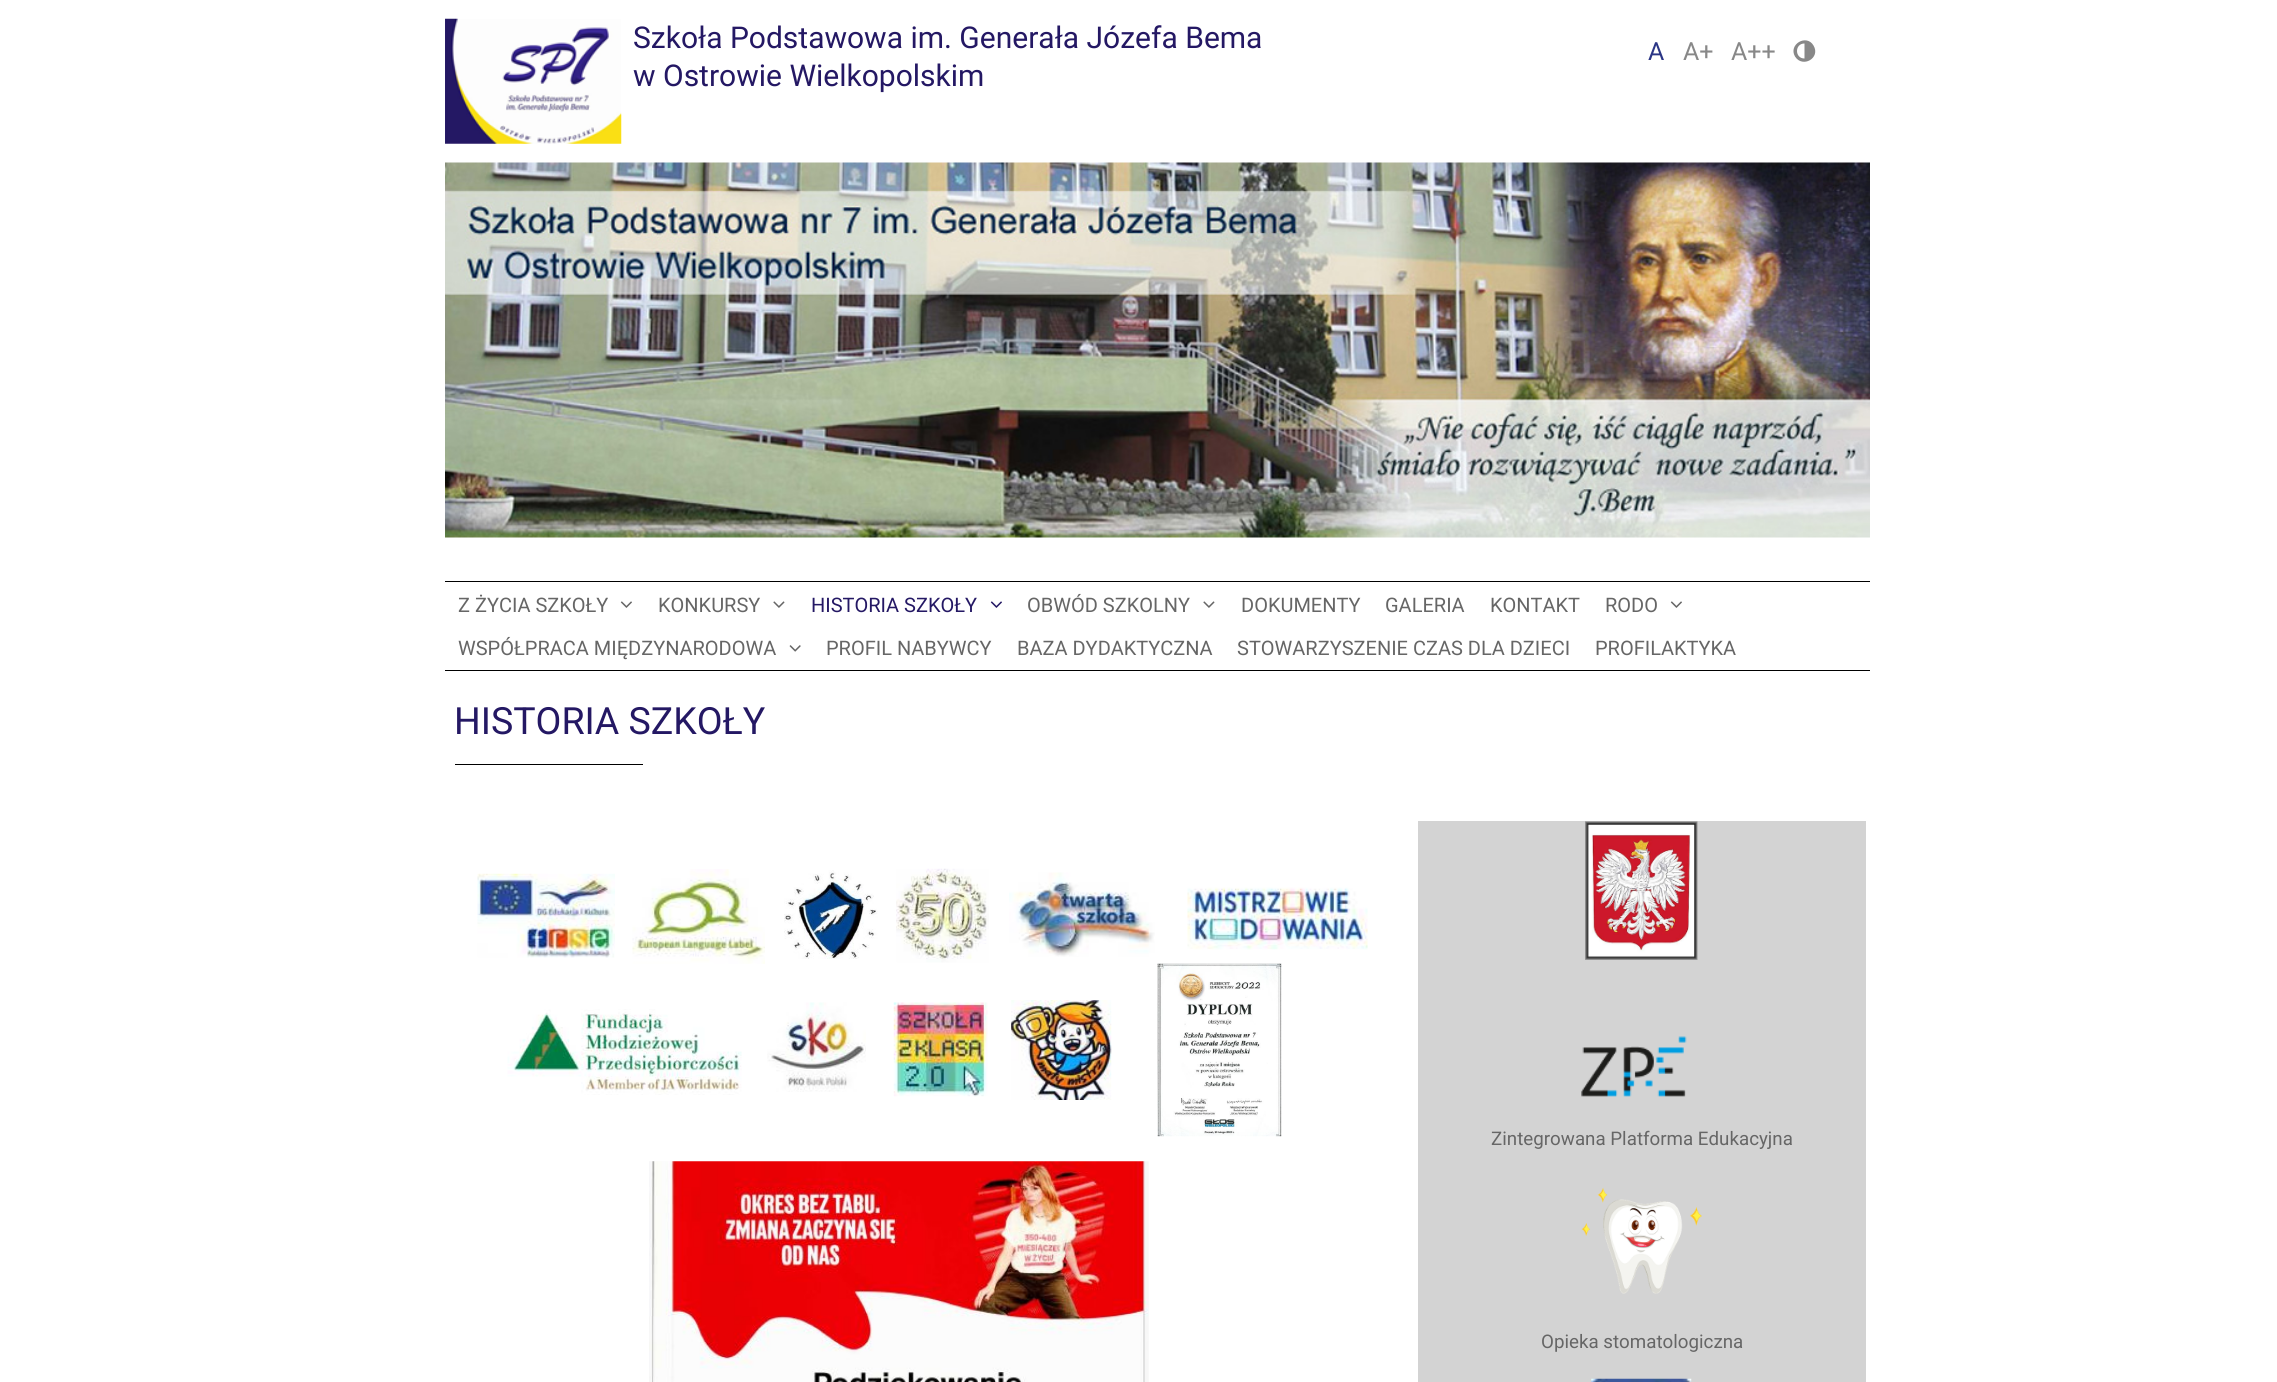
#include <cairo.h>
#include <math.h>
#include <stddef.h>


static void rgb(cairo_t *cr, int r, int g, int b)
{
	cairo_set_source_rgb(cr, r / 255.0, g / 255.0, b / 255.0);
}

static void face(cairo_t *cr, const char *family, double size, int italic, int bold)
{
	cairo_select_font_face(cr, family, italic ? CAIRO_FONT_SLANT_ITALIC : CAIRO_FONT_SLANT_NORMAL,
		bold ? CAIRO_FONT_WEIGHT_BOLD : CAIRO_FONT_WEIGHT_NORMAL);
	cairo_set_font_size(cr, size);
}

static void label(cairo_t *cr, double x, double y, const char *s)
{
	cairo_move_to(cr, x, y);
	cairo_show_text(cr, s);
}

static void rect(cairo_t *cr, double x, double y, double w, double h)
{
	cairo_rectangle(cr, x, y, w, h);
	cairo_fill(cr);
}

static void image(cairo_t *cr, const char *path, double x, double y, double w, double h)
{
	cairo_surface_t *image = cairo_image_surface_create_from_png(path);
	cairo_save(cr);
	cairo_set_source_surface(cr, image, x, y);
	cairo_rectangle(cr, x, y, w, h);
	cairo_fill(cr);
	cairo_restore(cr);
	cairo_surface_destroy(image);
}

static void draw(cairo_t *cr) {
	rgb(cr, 255, 255, 255);
	cairo_paint(cr);
	image(cr, "image0.png", 445, 18, 177, 126);
	face(cr, "Roboto", 30, 0, 0);
	rgb(cr, 36, 24, 100);
	label(cr, 633, 48, "Szkoła Podstawowa im. Generała Józefa Bema");
	label(cr, 633, 86, "w Ostrowie Wielkopolskim");
	face(cr, "Roboto", 25, 0, 0);
	rgb(cr, 43, 54, 134);
	label(cr, 1648, 60, "A");
	rgb(cr, 136, 136, 136);
	label(cr, 1683, 60, "A+");
	label(cr, 1731, 60, "A++");
	cairo_new_path(cr);
	cairo_move_to(cr, 1804.5, 58.5);
	cairo_line_to(cr, 1804.5, 43.5);
	cairo_curve_to(cr, 1794.5, 43.5, 1794.5, 58.5, 1804.5, 58.5);
	cairo_close_path(cr);
	cairo_move_to(cr, 1813.5, 45.5);
	cairo_curve_to(cr, 1821, 58, 1802.5, 68.5, 1795, 56.5);
	cairo_curve_to(cr, 1788, 44.5, 1806.5, 33.5, 1813.5, 45.5);
	cairo_close_path(cr);
	cairo_fill(cr);
	image(cr, "image1.png", 445, 162, 1425, 376);
	rgb(cr, 0, 0, 0);
	rect(cr, 445, 581, 1425, 1);
	rect(cr, 445, 670, 1425, 1);
	face(cr, "Roboto", 20, 0, 0);
	rgb(cr, 102, 102, 102);
	label(cr, 458, 612, "Z ŻYCIA SZKOŁY");
	image(cr, "image2.png", 620, 601, 12, 7);
	label(cr, 658, 612, "KONKURSY");
	image(cr, "image3.png", 773, 601, 12, 7);
	rgb(cr, 36, 24, 100);
	label(cr, 811, 612, "HISTORIA SZKOŁY");
	image(cr, "image4.png", 990, 601, 12, 7);
	rgb(cr, 102, 102, 102);
	label(cr, 1027, 612, "OBWÓD SZKOLNY");
	image(cr, "image3.png", 1203, 601, 12, 7);
	label(cr, 1241, 612, "DOKUMENTY");
	label(cr, 1385, 612, "GALERIA");
	label(cr, 1490, 612, "KONTAKT");
	label(cr, 1605, 612, "RODO");
	image(cr, "image2.png", 1670, 601, 12, 7);
	label(cr, 458, 655, "WSPÓŁPRACA MIĘDZYNARODOWA");
	image(cr, "image5.png", 789, 645, 12, 7);
	label(cr, 826, 655, "PROFIL NABYWCY");
	label(cr, 1017, 655, "BAZA DYDAKTYCZNA");
	label(cr, 1237, 655, "STOWARZYSZENIE CZAS DLA DZIECI");
	label(cr, 1595, 655, "PROFILAKTYKA");
	face(cr, "Roboto", 37.5, 0, 0);
	rgb(cr, 36, 24, 100);
	label(cr, 454, 734, "HISTORIA SZKOŁY");
	rgb(cr, 0, 0, 0);
	rect(cr, 455, 764, 188, 1);
	image(cr, "image6.png", 477, 873, 138, 85);
	image(cr, "image7.png", 632, 869, 133, 95);
	image(cr, "image8.png", 784, 870, 94, 89);
	image(cr, "image9.png", 896, 868, 93, 95);
	image(cr, "image10.png", 1009, 872, 146, 85);
	image(cr, "image11.png", 1187, 887, 181, 63);
	image(cr, "image12.png", 507, 1009, 235, 86);
	image(cr, "image13.png", 767, 1002, 99, 90);
	image(cr, "image14.png", 893, 1002, 95, 95);
	image(cr, "image15.png", 1011, 1000, 101, 100);
	image(cr, "image16.png", 1157, 963, 125, 174);
	image(cr, "image17.png", 649, 1161, 500, 221);
	rgb(cr, 211, 211, 211);
	rect(cr, 1418, 821, 448, 561);
	image(cr, "image18.png", 1585, 821, 113, 139);
	image(cr, "image19.png", 1581, 1036, 106, 61);
	face(cr, "Roboto", 18.75, 0, 0);
	rgb(cr, 102, 102, 102);
	label(cr, 1491, 1145, "Zintegrowana Platforma Edukacyjna");
	image(cr, "image20.png", 1581, 1187, 121, 107);
	label(cr, 1541, 1348, "Opieka stomatologiczna");
	image(cr, "image21.png", 1591, 1378, 101, 4);
}

int main(void) {
	cairo_surface_t *surface = cairo_image_surface_create(CAIRO_FORMAT_RGB24, 2277, 1382);
	cairo_t *cr = cairo_create(surface);
	cairo_font_options_t *options = cairo_font_options_create();
	cairo_font_options_set_hint_metrics(options, CAIRO_HINT_METRICS_OFF);
	cairo_font_options_set_hint_style(options, CAIRO_HINT_STYLE_NONE);
	cairo_set_font_options(cr, options);
	cairo_set_miter_limit(cr, 4);
	draw(cr);
	cairo_surface_write_to_png(surface, "render.png");
	cairo_font_options_destroy(options);
	cairo_destroy(cr);
	cairo_surface_destroy(surface);
	return 0;
}
